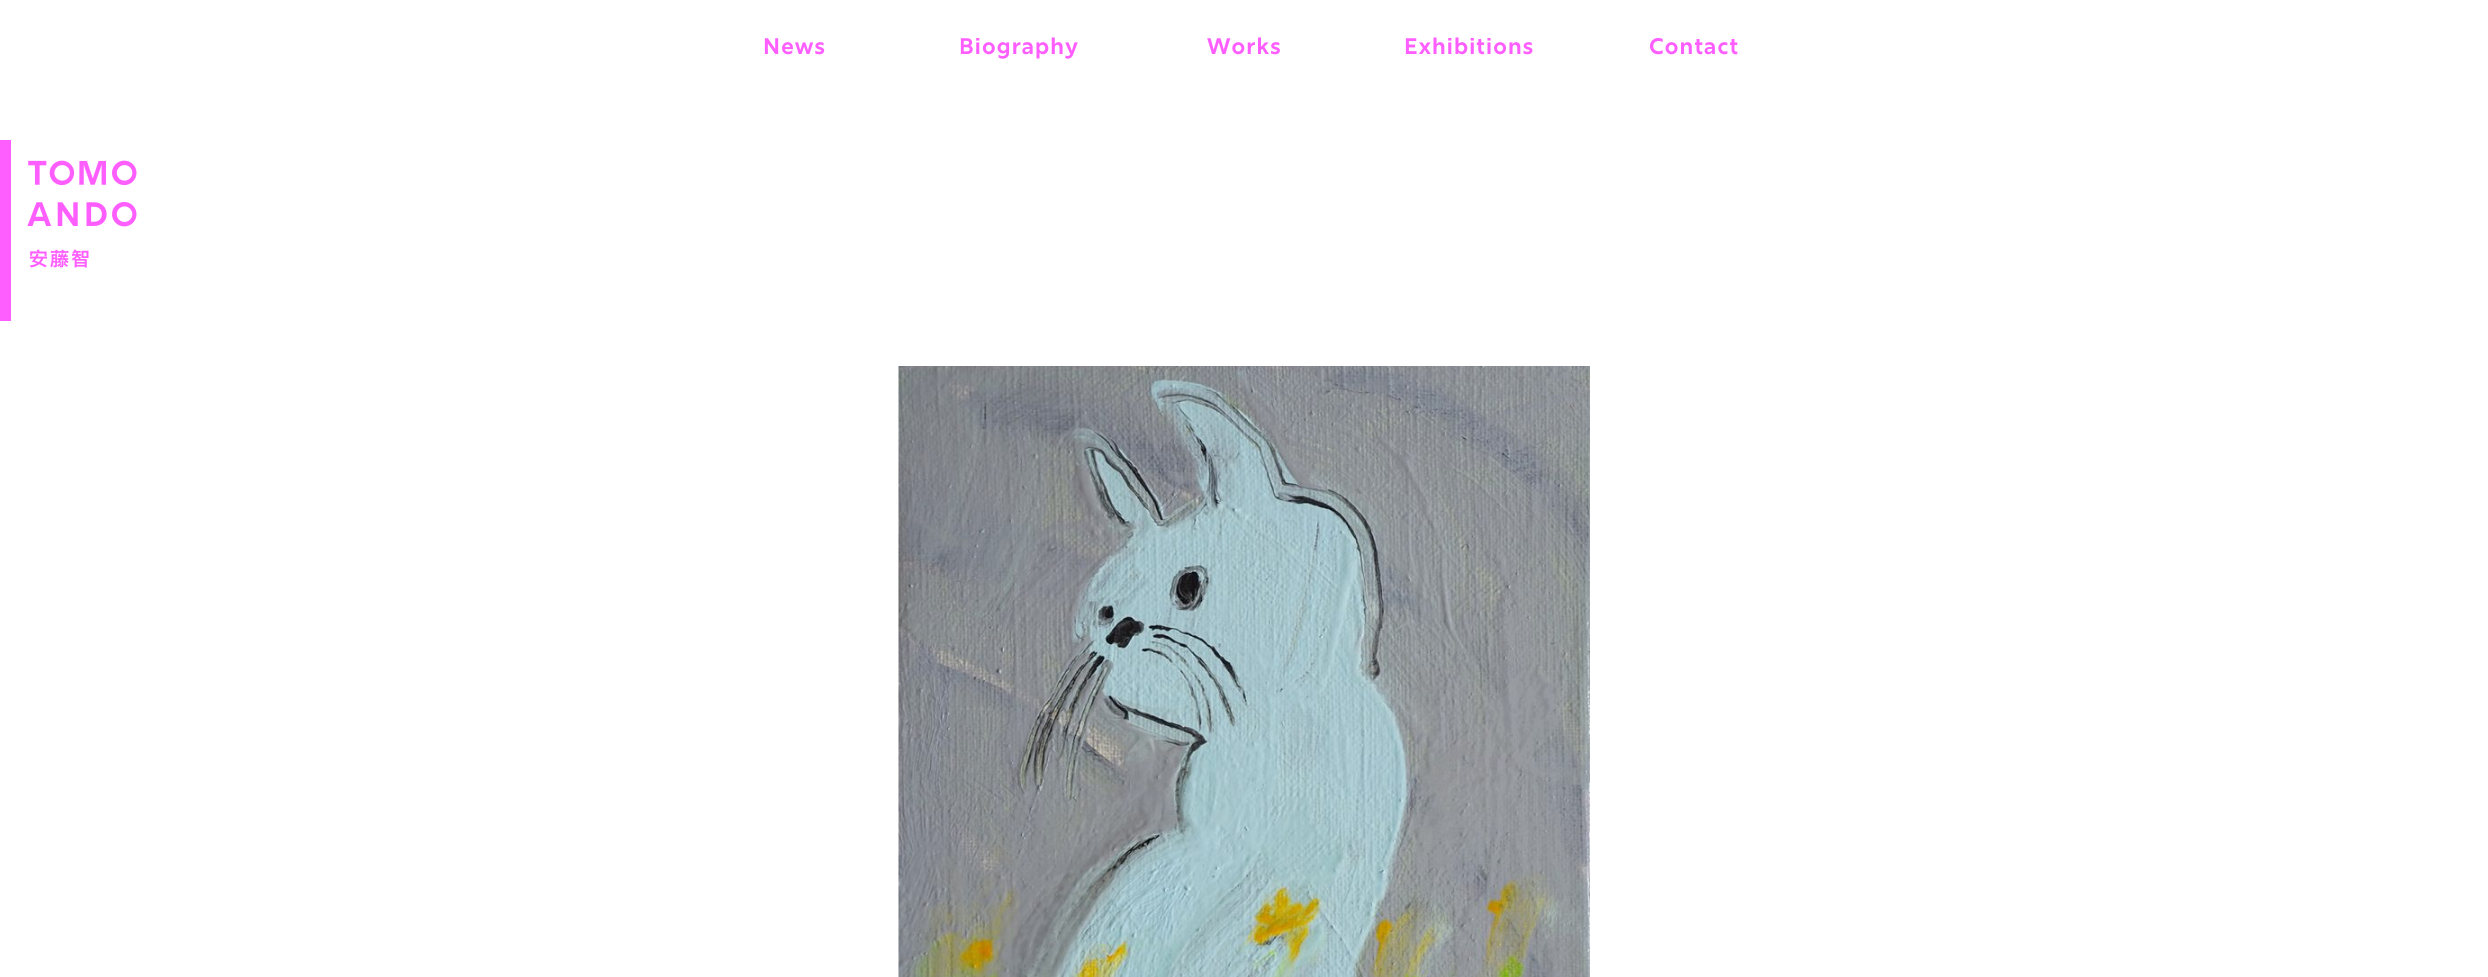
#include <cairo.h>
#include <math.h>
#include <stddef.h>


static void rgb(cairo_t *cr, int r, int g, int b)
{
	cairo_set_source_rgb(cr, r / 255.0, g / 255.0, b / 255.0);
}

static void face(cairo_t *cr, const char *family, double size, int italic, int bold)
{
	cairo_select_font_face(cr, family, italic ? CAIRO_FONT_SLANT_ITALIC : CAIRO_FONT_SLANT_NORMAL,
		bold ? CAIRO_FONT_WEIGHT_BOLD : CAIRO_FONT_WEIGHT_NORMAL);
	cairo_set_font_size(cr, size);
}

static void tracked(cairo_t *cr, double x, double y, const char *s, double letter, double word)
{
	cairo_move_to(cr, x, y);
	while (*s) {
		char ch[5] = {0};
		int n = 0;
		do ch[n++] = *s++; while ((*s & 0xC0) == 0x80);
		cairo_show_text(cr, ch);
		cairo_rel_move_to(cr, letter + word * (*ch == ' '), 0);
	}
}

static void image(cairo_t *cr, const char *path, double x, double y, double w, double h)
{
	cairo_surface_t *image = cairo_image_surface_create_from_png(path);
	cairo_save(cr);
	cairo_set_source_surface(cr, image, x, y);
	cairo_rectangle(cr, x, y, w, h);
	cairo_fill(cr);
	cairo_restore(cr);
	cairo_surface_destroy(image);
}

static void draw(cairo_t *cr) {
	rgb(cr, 255, 255, 255);
	cairo_paint(cr);
	face(cr, "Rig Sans", 22.5, 0, 1);
	rgb(cr, 255, 94, 255);
	tracked(cr, 763, 54, "News", 1.1, 0);
	tracked(cr, 959, 54, "Biography", 1.1, 0);
	tracked(cr, 1207, 54, "Works", 1.1, 0);
	tracked(cr, 1404, 54, "Exhibitions", 1.1, 0);
	tracked(cr, 1649, 54, "Contact", 1.1, 0);
	image(cr, "image0.png", 0, 140, 137, 181);
	image(cr, "image1.png", 898, 366, 692, 611);
}

int main(void) {
	cairo_surface_t *surface = cairo_image_surface_create(CAIRO_FORMAT_RGB24, 2488, 977);
	cairo_t *cr = cairo_create(surface);
	cairo_font_options_t *options = cairo_font_options_create();
	cairo_font_options_set_hint_metrics(options, CAIRO_HINT_METRICS_OFF);
	cairo_font_options_set_hint_style(options, CAIRO_HINT_STYLE_NONE);
	cairo_set_font_options(cr, options);
	cairo_set_miter_limit(cr, 4);
	draw(cr);
	cairo_surface_write_to_png(surface, "render.png");
	cairo_font_options_destroy(options);
	cairo_destroy(cr);
	cairo_surface_destroy(surface);
	return 0;
}
